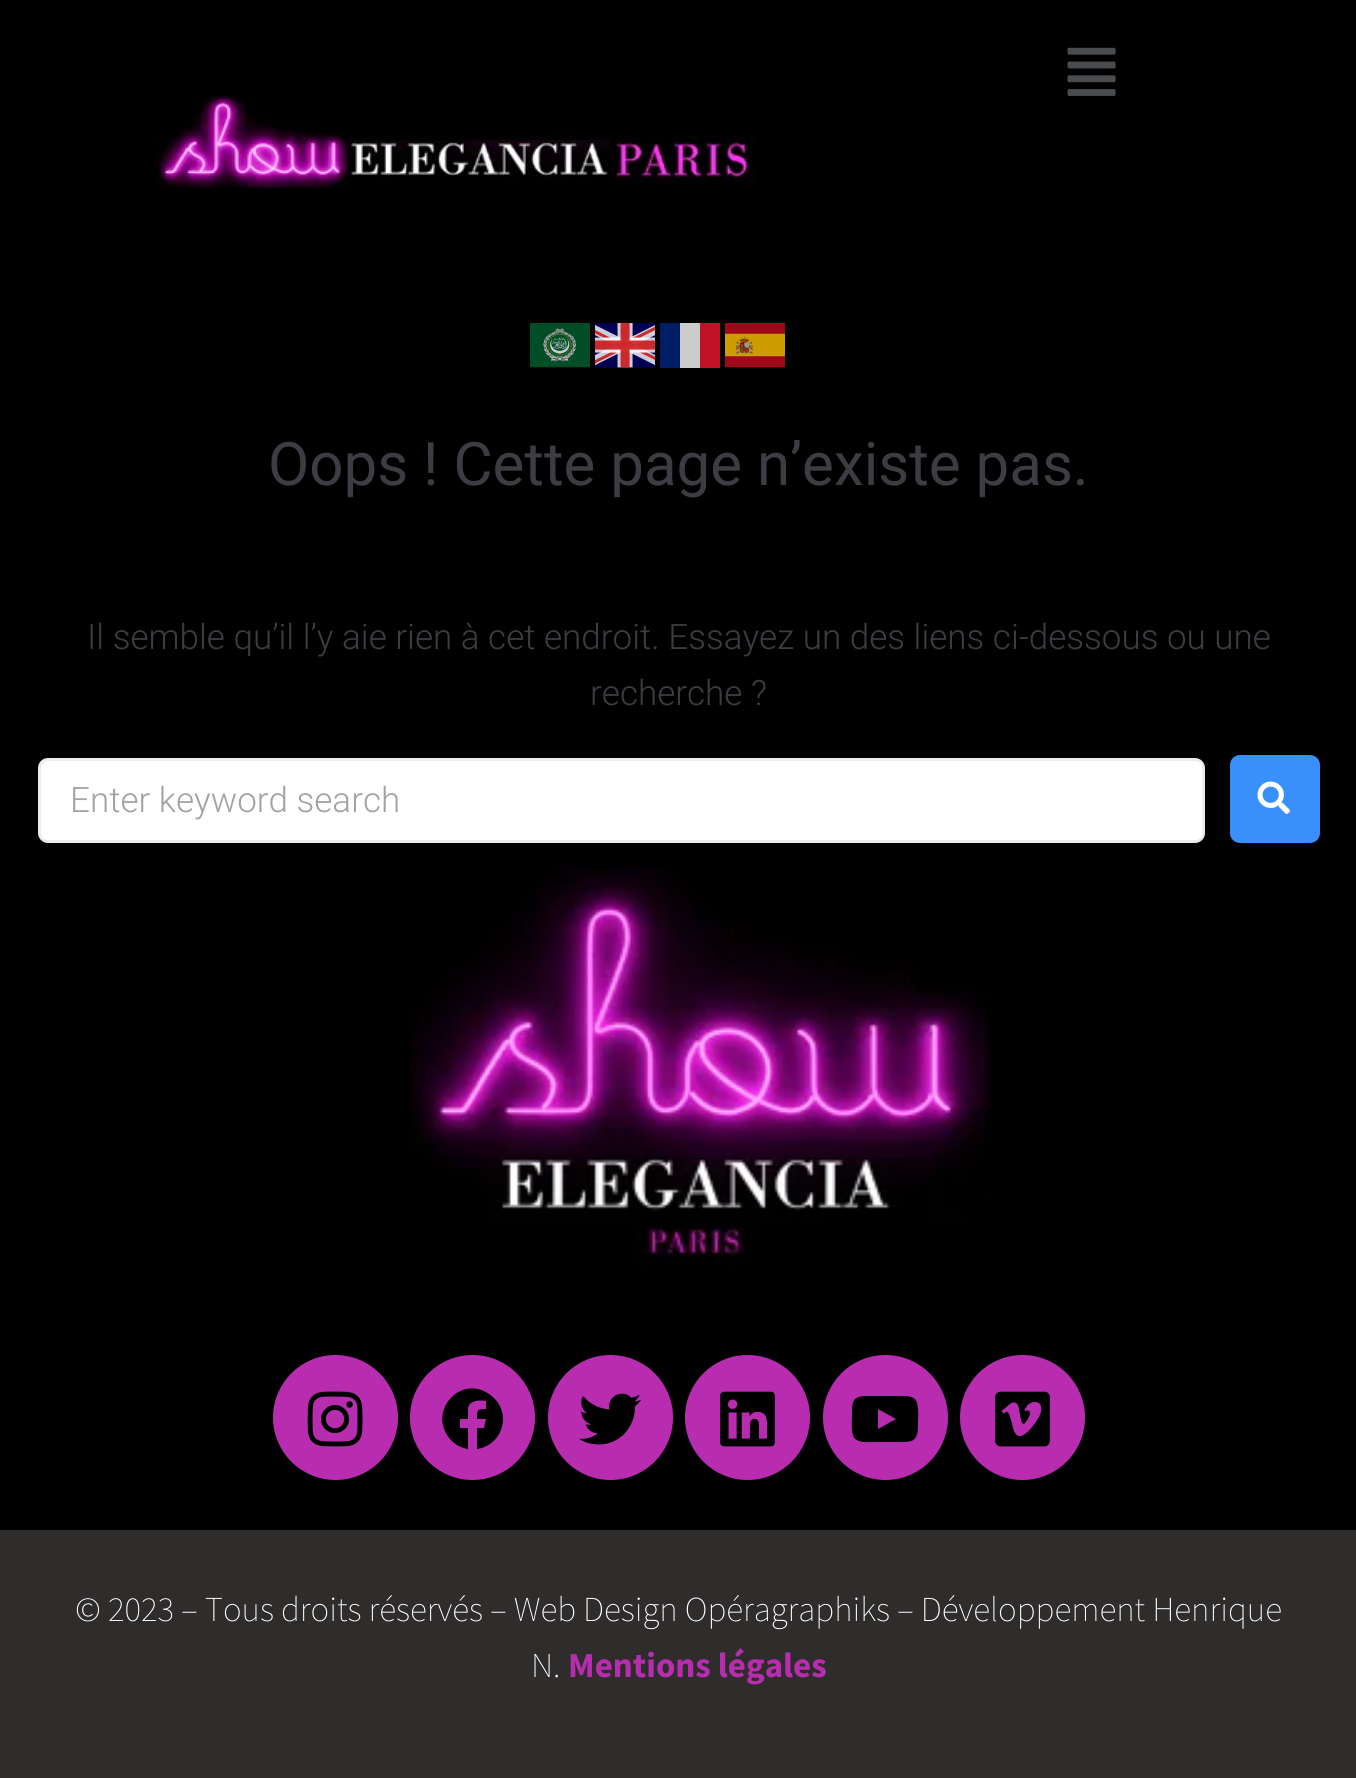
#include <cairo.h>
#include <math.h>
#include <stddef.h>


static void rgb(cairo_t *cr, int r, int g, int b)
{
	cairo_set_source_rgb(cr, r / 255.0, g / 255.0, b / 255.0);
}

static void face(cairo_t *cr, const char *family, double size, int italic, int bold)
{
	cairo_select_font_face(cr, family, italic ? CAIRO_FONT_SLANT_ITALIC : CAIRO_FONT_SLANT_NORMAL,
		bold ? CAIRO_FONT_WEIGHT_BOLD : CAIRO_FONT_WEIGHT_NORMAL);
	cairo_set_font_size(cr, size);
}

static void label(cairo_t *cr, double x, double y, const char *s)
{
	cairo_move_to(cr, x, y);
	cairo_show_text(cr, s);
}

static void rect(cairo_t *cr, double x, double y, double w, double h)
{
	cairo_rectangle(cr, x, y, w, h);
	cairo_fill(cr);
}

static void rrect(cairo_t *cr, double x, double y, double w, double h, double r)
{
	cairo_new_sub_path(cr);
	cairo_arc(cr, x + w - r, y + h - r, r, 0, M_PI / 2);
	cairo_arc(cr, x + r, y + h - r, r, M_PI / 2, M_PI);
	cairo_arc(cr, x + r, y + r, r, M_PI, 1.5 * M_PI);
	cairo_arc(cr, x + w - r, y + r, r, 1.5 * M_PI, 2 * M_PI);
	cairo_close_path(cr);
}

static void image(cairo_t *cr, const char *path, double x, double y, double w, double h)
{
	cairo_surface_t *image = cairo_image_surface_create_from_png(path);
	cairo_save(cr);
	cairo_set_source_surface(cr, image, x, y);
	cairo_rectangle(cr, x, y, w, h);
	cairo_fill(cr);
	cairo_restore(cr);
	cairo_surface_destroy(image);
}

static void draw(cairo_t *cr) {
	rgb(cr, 0, 0, 0);
	cairo_paint(cr);
	image(cr, "image0.png", 1067, 47, 49, 49);
	image(cr, "image1.png", 155, 95, 600, 94);
	image(cr, "image2.png", 530, 323, 60, 45);
	image(cr, "image3.png", 595, 323, 60, 45);
	rgb(cr, 0, 30, 102);
	rect(cr, 660, 323, 20, 45);
	rgb(cr, 204, 204, 204);
	rect(cr, 680, 323, 20, 45);
	rgb(cr, 194, 19, 38);
	rect(cr, 700, 323, 20, 45);
	image(cr, "image4.png", 725, 323, 60, 45);
	face(cr, "Roboto", 60, 0, 0);
	rgb(cr, 59, 61, 66);
	label(cr, 268, 485, "Oops ! Cette page n’existe pas.");
	face(cr, "Roboto Light", 35, 0, 0);
	label(cr, 87, 649, "Il semble qu’il l’y aie rien à cet endroit. Essayez un des liens ci-dessous ou une");
	label(cr, 590, 705, "recherche ?");
	rgb(cr, 255, 255, 255);
	rrect(cr, 39.5, 759.5, 1164, 82, 8.5);
	cairo_fill_preserve(cr);
	rgb(cr, 235, 236, 237);
	cairo_set_line_width(cr, 3);
	cairo_stroke(cr);
	rgb(cr, 161, 162, 164);
	label(cr, 70, 812, "Enter keyword search");
	rgb(cr, 57, 143, 252);
	rrect(cr, 1230, 755, 90, 88, 10);
	cairo_fill(cr);
	image(cr, "image5.png", 1257, 781, 33, 33);
	image(cr, "image6.png", 410, 867, 581, 400);
	rgb(cr, 184, 45, 175);
	cairo_arc(cr, 335.5, 1417.5, 62.5, 0, 2 * M_PI);
	cairo_fill(cr);
	image(cr, "image7.png", 307, 1391, 56, 56);
	cairo_arc(cr, 472.5, 1417.5, 62.5, 0, 2 * M_PI);
	cairo_fill(cr);
	rgb(cr, 0, 0, 0);
	cairo_new_path(cr);
	cairo_move_to(cr, 503, 1419);
	cairo_curve_to(cr, 503, 1434, 492, 1447, 477, 1449);
	cairo_line_to(cr, 477, 1428);
	cairo_line_to(cr, 484, 1428);
	cairo_line_to(cr, 486, 1419);
	cairo_line_to(cr, 477, 1419);
	cairo_curve_to(cr, 477, 1410, 477, 1409, 486, 1409);
	cairo_line_to(cr, 486, 1401);
	cairo_curve_to(cr, 479, 1400, 470, 1400, 468, 1408);
	cairo_line_to(cr, 468, 1419);
	cairo_line_to(cr, 460, 1419);
	cairo_line_to(cr, 460, 1428);
	cairo_line_to(cr, 468, 1428);
	cairo_line_to(cr, 468, 1449);
	cairo_curve_to(cr, 461, 1448, 454, 1444, 450, 1439);
	cairo_curve_to(cr, 427, 1412, 460, 1374, 489, 1394);
	cairo_curve_to(cr, 498, 1400, 503, 1409, 503, 1419);
	cairo_close_path(cr);
	cairo_fill(cr);
	rgb(cr, 184, 45, 175);
	cairo_arc(cr, 610.5, 1417.5, 62.5, 0, 2 * M_PI);
	cairo_fill(cr);
	image(cr, "image8.png", 579, 1393, 63, 52);
	cairo_arc(cr, 747.5, 1417.5, 62.5, 0, 2 * M_PI);
	cairo_fill(cr);
	image(cr, "image9.png", 720, 1391, 55, 56);
	cairo_arc(cr, 885.5, 1417.5, 62.5, 0, 2 * M_PI);
	cairo_fill(cr);
	rgb(cr, 0, 0, 0);
	cairo_new_path(cr);
	cairo_move_to(cr, 917, 1403);
	cairo_curve_to(cr, 919, 1410, 918, 1417, 918, 1424);
	cairo_curve_to(cr, 918, 1444, 912, 1442, 892, 1442);
	cairo_line_to(cr, 876, 1442);
	cairo_curve_to(cr, 869, 1442, 855, 1444, 853, 1435);
	cairo_curve_to(cr, 851, 1429, 852, 1421, 852, 1414);
	cairo_curve_to(cr, 852, 1403, 852, 1397, 864, 1396);
	cairo_line_to(cr, 879, 1396);
	cairo_line_to(cr, 899, 1396);
	cairo_curve_to(cr, 905, 1396, 915, 1395, 917, 1403);
	cairo_close_path(cr);
	cairo_move_to(cr, 878, 1429);
	cairo_line_to(cr, 896, 1419);
	cairo_line_to(cr, 878, 1409);
	cairo_close_path(cr);
	cairo_fill(cr);
	rgb(cr, 184, 45, 175);
	cairo_arc(cr, 1022.5, 1417.5, 62.5, 0, 2 * M_PI);
	cairo_fill(cr);
	image(cr, "image10.png", 995, 1391, 55, 56);
	rgb(cr, 47, 44, 44);
	rect(cr, 0, 1530, 1356, 248);
	face(cr, "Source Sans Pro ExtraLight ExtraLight", 35, 0, 0);
	rgb(cr, 255, 255, 255);
	label(cr, 75, 1621, "© 2023 – Tous droits réservés – Web Design Opéragraphiks – Développement Henrique");
	label(cr, 531, 1677, "N.");
	face(cr, "Source Sans Pro", 35, 0, 1);
	rgb(cr, 184, 45, 175);
	label(cr, 568, 1677, "Mentions légales");
}

int main(void) {
	cairo_surface_t *surface = cairo_image_surface_create(CAIRO_FORMAT_RGB24, 1356, 1778);
	cairo_t *cr = cairo_create(surface);
	cairo_font_options_t *options = cairo_font_options_create();
	cairo_font_options_set_hint_metrics(options, CAIRO_HINT_METRICS_OFF);
	cairo_font_options_set_hint_style(options, CAIRO_HINT_STYLE_NONE);
	cairo_set_font_options(cr, options);
	cairo_set_miter_limit(cr, 4);
	draw(cr);
	cairo_surface_write_to_png(surface, "render.png");
	cairo_font_options_destroy(options);
	cairo_destroy(cr);
	cairo_surface_destroy(surface);
	return 0;
}
